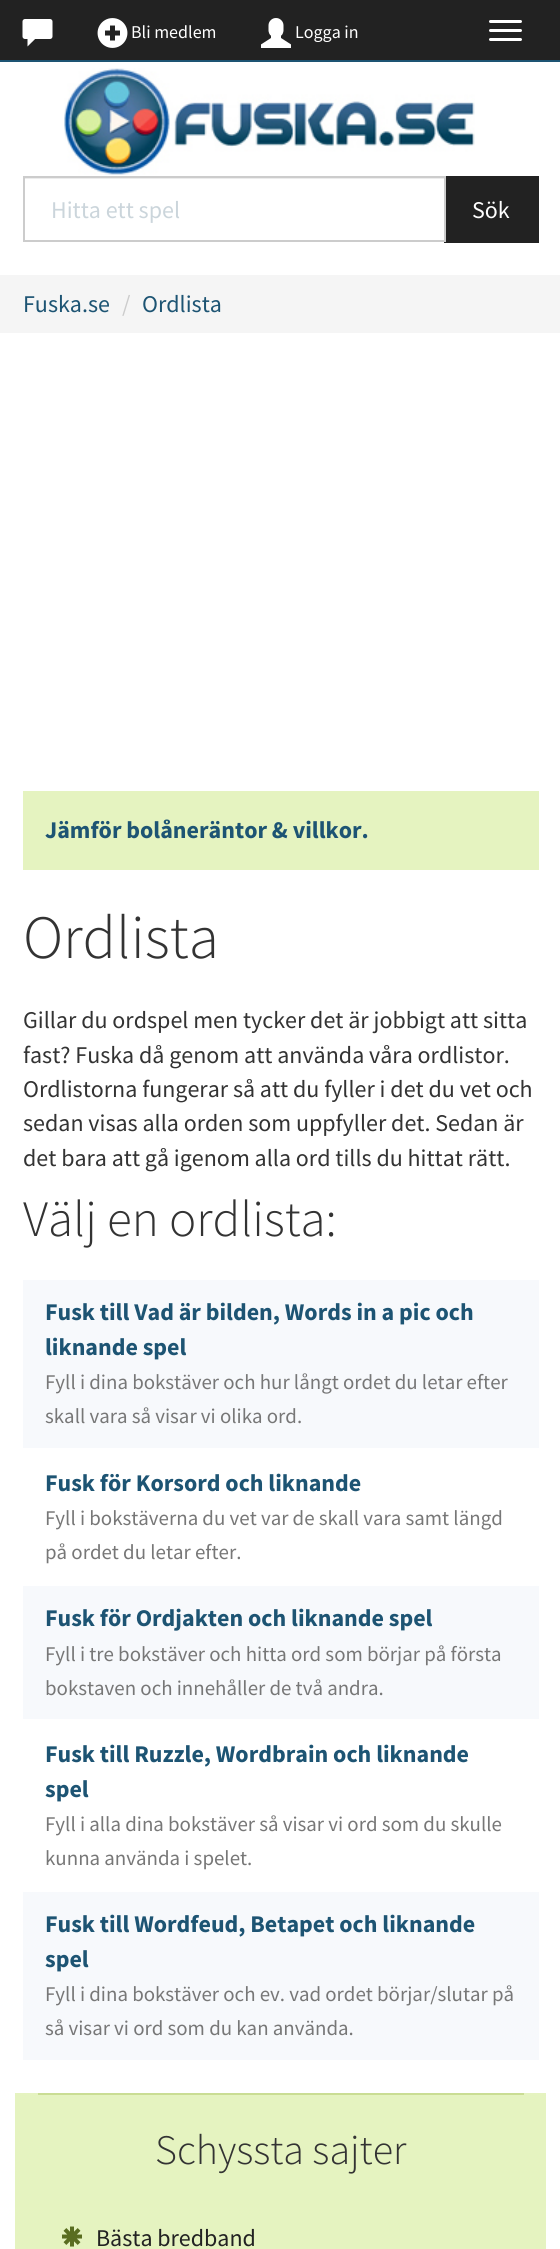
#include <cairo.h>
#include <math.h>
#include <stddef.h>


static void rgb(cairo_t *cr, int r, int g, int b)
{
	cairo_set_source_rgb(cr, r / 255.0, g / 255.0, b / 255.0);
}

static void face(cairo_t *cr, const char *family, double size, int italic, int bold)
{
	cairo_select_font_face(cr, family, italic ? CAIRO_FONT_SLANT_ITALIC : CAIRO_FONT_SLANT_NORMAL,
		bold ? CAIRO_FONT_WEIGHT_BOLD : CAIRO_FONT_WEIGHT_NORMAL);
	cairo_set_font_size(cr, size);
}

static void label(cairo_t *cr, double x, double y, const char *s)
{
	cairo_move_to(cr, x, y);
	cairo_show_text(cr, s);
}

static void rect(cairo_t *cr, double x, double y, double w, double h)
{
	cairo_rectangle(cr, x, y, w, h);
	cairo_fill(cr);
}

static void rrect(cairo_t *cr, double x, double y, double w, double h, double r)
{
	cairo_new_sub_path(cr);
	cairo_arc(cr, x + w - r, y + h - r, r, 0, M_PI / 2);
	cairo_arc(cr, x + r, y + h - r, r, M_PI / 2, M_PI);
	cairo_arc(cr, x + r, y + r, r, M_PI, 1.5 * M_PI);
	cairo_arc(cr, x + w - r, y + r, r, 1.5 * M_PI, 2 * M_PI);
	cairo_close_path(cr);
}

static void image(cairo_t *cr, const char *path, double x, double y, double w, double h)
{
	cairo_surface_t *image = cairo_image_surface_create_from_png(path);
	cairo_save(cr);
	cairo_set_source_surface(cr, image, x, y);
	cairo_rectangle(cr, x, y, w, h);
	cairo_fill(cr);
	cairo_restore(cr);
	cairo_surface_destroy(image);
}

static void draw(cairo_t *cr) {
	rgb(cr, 255, 255, 255);
	cairo_paint(cr);
	rgb(cr, 34, 34, 34);
	rect(cr, 0, 0, 560, 60);
	rgb(cr, 29, 84, 115);
	rect(cr, 0, 60, 560, 2);
	image(cr, "image0.png", 22, 19, 31, 28);
	image(cr, "image1.png", 97, 18, 31, 30);
	face(cr, "Source Sans Pro", 18, 0, 0);
	rgb(cr, 255, 255, 255);
	label(cr, 131, 38, "Bli medlem");
	image(cr, "image2.png", 261, 18, 30, 30);
	label(cr, 295, 38, "Logga in");
	rrect(cr, 489, 20, 33, 3, 1.5);
	cairo_fill(cr);
	rrect(cr, 489, 29, 33, 3, 1.5);
	cairo_fill(cr);
	rrect(cr, 489, 38, 33, 3, 1.5);
	cairo_fill(cr);
	image(cr, "image3.png", 64, 68, 411, 107);
	rgb(cr, 236, 236, 236);
	rect(cr, 24, 178, 420, 1);
	rgb(cr, 34, 34, 34);
	rect(cr, 444, 176, 95, 67);
	cairo_rectangle(cr, 24, 177, 421, 64);
	rgb(cr, 204, 204, 204);
	cairo_stroke(cr);
	face(cr, "Source Sans Pro", 24, 0, 0);
	rgb(cr, 203, 213, 219);
	label(cr, 51, 218, "Hitta ett spel");
	rgb(cr, 255, 255, 255);
	label(cr, 472, 218, "Sök");
	rgb(cr, 245, 245, 245);
	rect(cr, 0, 275, 560, 58);
	rgb(cr, 29, 84, 115);
	label(cr, 23, 312, "Fuska.se");
	rgb(cr, 204, 204, 204);
	label(cr, 122, 312, "/");
	rgb(cr, 29, 84, 115);
	label(cr, 142, 312, "Ordlista");
	rgb(cr, 229, 243, 192);
	rect(cr, 23, 791, 516, 79);
	face(cr, "Source Sans Pro", 24, 0, 1);
	rgb(cr, 29, 84, 115);
	label(cr, 45, 838, "Jämför bolåneräntor & villkor.");
	face(cr, "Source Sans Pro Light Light", 61.5, 0, 0);
	rgb(cr, 51, 51, 51);
	label(cr, 23, 958, "Ordlista");
	face(cr, "Source Sans Pro", 24, 0, 0);
	label(cr, 23, 1028, "Gillar du ordspel men tycker det är jobbigt att sitta");
	label(cr, 23, 1063, "fast? Fuska då genom att använda våra ordlistor.");
	label(cr, 23, 1097, "Ordlistorna fungerar så att du fyller i det du vet och");
	label(cr, 23, 1131, "sedan visas alla orden som uppfyller det. Sedan är");
	label(cr, 23, 1166, "det bara att gå igenom alla ord tills du hittat rätt.");
	face(cr, "Source Sans Pro Light Light", 51, 0, 0);
	label(cr, 23, 1236, "Välj en ordlista:");
	rgb(cr, 247, 249, 252);
	rect(cr, 23, 1280, 516, 168);
	face(cr, "Source Sans Pro", 24, 0, 1);
	rgb(cr, 29, 84, 115);
	label(cr, 45, 1320, "Fusk till Vad är bilden, Words in a pic och");
	label(cr, 45, 1355, "liknande spel");
	face(cr, "Source Sans Pro", 20.9, 0, 0);
	rgb(cr, 119, 119, 119);
	label(cr, 45, 1389, "Fyll i dina bokstäver och hur långt ordet du letar efter");
	label(cr, 45, 1423, "skall vara så visar vi olika ord.");
	face(cr, "Source Sans Pro", 24, 0, 1);
	rgb(cr, 29, 84, 115);
	label(cr, 45, 1491, "Fusk för Korsord och liknande");
	face(cr, "Source Sans Pro", 20.9, 0, 0);
	rgb(cr, 119, 119, 119);
	label(cr, 45, 1525, "Fyll i bokstäverna du vet var de skall vara samt längd");
	label(cr, 45, 1559, "på ordet du letar efter.");
	rgb(cr, 247, 249, 252);
	rect(cr, 23, 1586, 516, 133);
	face(cr, "Source Sans Pro", 24, 0, 1);
	rgb(cr, 29, 84, 115);
	label(cr, 45, 1626, "Fusk för Ordjakten och liknande spel");
	face(cr, "Source Sans Pro", 20.9, 0, 0);
	rgb(cr, 119, 119, 119);
	label(cr, 45, 1661, "Fyll i tre bokstäver och hitta ord som börjar på första");
	label(cr, 45, 1695, "bokstaven och innehåller de två andra.");
	face(cr, "Source Sans Pro", 24, 0, 1);
	rgb(cr, 29, 84, 115);
	label(cr, 45, 1762, "Fusk till Ruzzle, Wordbrain och liknande");
	label(cr, 45, 1797, "spel");
	face(cr, "Source Sans Pro", 20.9, 0, 0);
	rgb(cr, 119, 119, 119);
	label(cr, 45, 1831, "Fyll i alla dina bokstäver så visar vi ord som du skulle");
	label(cr, 45, 1865, "kunna använda i spelet.");
	rgb(cr, 247, 249, 252);
	rect(cr, 23, 1892, 516, 168);
	face(cr, "Source Sans Pro", 24, 0, 1);
	rgb(cr, 29, 84, 115);
	label(cr, 45, 1932, "Fusk till Wordfeud, Betapet och liknande");
	label(cr, 45, 1967, "spel");
	face(cr, "Source Sans Pro", 20.9, 0, 0);
	rgb(cr, 119, 119, 119);
	label(cr, 45, 2001, "Fyll i dina bokstäver och ev. vad ordet börjar/slutar på");
	label(cr, 45, 2035, "så visar vi ord som du kan använda.");
	rgb(cr, 229, 243, 192);
	rect(cr, 15, 2093, 531, 156);
	rgb(cr, 202, 221, 148);
	rect(cr, 38, 2093, 486, 2);
	face(cr, "Source Sans Pro Light Light", 42, 0, 0);
	rgb(cr, 51, 51, 51);
	label(cr, 155, 2164, "Schyssta sajter");
	image(cr, "image4.png", 62, 2226, 20, 21);
	face(cr, "Source Sans Pro", 24, 0, 0);
	rgb(cr, 34, 34, 34);
	label(cr, 96, 2246, "Bästa bredband");
}

int main(void) {
	cairo_surface_t *surface = cairo_image_surface_create(CAIRO_FORMAT_RGB24, 560, 2249);
	cairo_t *cr = cairo_create(surface);
	cairo_font_options_t *options = cairo_font_options_create();
	cairo_font_options_set_hint_metrics(options, CAIRO_HINT_METRICS_OFF);
	cairo_font_options_set_hint_style(options, CAIRO_HINT_STYLE_NONE);
	cairo_set_font_options(cr, options);
	cairo_set_miter_limit(cr, 4);
	draw(cr);
	cairo_surface_write_to_png(surface, "render.png");
	cairo_font_options_destroy(options);
	cairo_destroy(cr);
	cairo_surface_destroy(surface);
	return 0;
}
